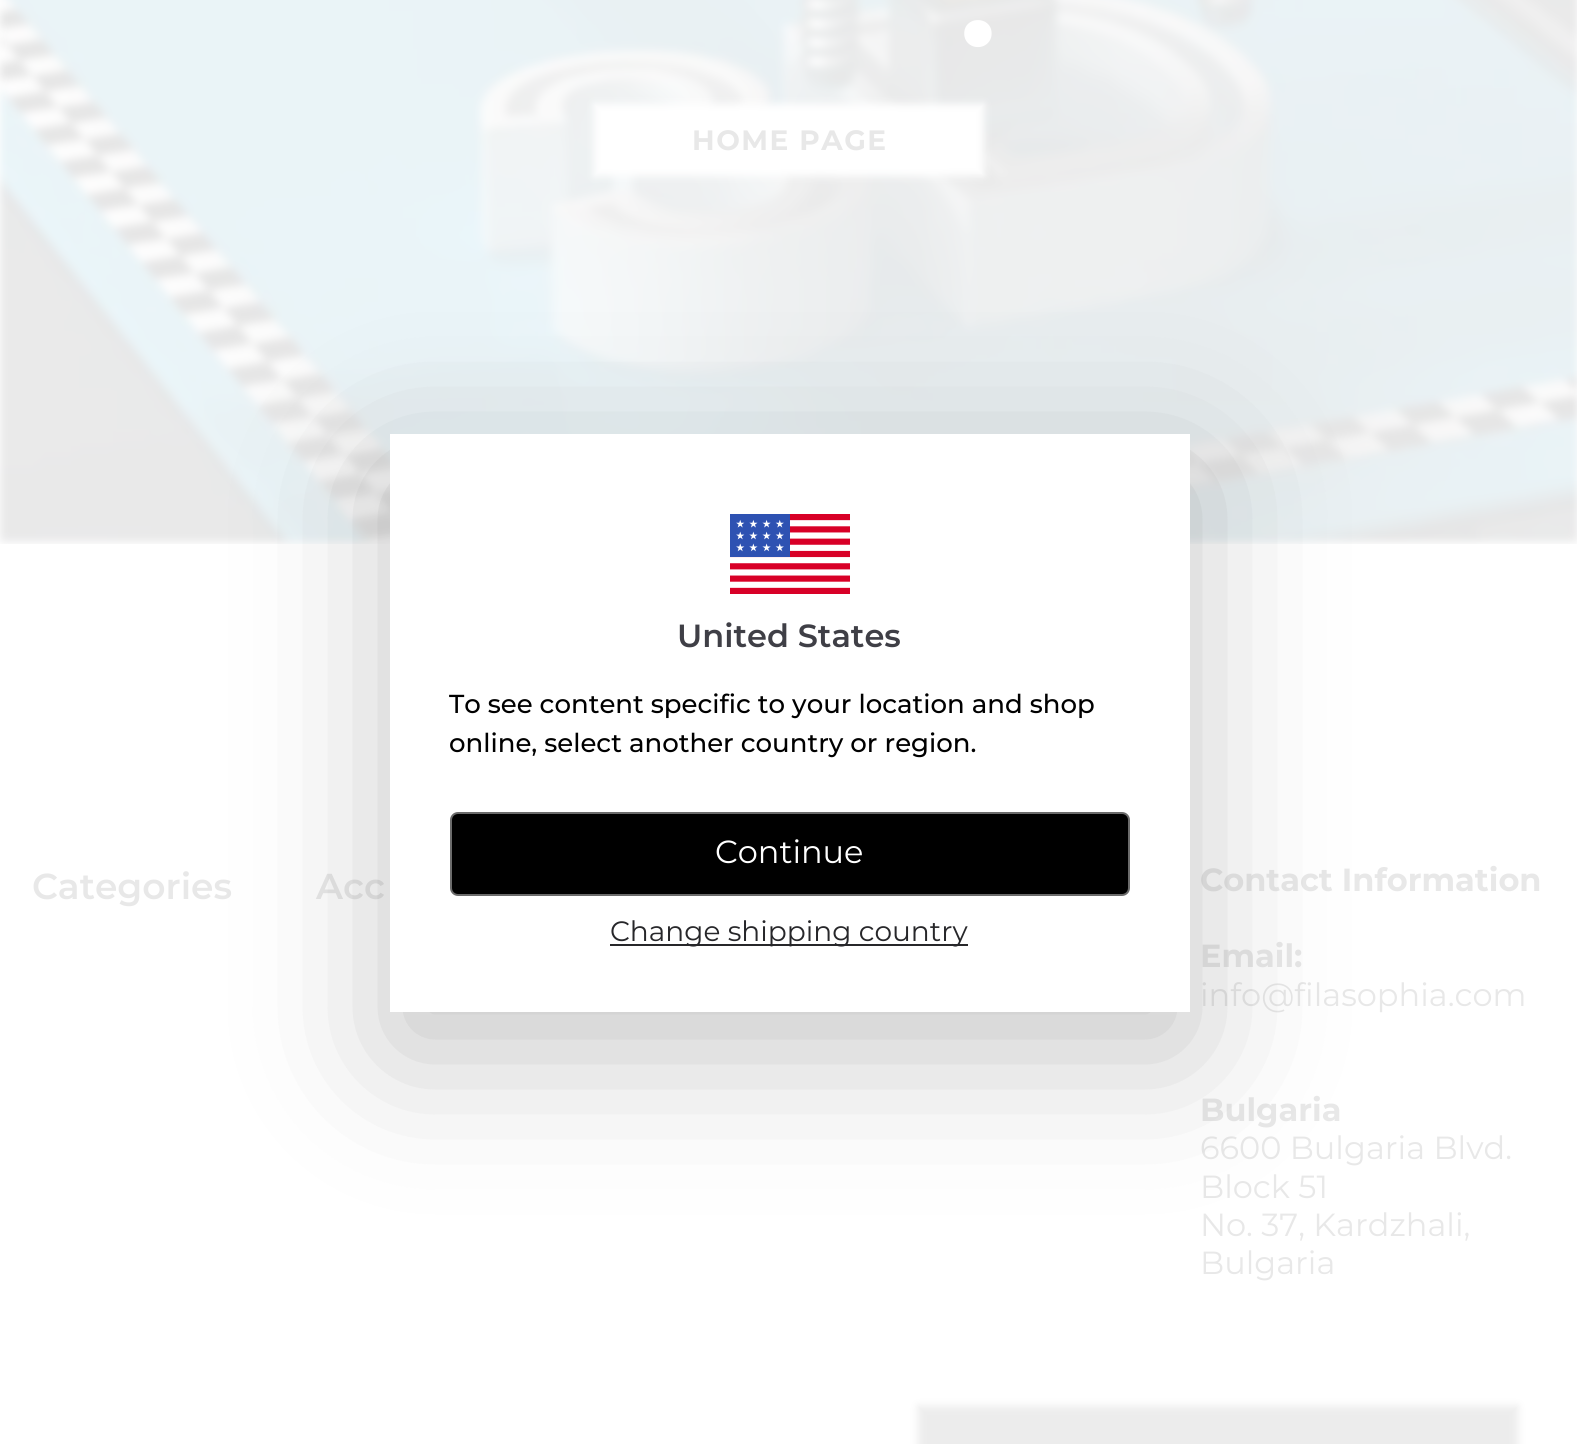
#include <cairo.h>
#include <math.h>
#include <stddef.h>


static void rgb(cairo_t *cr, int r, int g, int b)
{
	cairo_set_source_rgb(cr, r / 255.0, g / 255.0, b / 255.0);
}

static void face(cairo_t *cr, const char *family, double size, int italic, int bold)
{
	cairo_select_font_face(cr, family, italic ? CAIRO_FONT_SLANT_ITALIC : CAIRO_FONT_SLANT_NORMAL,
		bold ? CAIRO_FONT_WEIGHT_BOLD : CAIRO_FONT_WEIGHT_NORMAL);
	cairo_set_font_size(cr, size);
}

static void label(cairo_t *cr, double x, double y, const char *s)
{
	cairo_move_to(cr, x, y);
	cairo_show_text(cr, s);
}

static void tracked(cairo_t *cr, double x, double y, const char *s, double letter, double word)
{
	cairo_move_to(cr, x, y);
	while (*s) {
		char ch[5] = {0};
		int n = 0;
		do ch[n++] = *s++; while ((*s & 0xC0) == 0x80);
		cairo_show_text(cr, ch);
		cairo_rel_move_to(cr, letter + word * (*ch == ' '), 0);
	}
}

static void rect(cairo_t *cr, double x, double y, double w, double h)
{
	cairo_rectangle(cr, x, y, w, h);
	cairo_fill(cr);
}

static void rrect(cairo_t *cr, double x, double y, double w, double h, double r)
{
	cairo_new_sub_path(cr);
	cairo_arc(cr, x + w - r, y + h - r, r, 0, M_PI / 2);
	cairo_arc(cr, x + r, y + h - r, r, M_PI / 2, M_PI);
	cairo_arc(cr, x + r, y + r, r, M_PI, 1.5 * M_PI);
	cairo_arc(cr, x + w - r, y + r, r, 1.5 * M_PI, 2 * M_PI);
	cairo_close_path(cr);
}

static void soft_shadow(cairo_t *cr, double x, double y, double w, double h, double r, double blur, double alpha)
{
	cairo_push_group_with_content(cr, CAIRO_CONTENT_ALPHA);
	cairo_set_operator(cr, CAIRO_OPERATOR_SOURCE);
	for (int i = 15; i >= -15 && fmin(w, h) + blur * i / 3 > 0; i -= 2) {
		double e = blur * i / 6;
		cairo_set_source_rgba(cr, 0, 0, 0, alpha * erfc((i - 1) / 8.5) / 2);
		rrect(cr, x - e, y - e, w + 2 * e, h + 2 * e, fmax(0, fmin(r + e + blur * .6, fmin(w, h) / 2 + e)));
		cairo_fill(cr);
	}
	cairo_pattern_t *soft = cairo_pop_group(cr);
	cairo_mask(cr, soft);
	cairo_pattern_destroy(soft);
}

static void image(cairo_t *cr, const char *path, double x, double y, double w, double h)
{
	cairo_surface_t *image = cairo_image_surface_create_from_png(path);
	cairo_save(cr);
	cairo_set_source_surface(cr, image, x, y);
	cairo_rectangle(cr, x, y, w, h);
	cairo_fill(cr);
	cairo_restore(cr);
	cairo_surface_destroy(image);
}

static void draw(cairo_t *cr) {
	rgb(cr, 255, 255, 255);
	cairo_paint(cr);
	image(cr, "image0.png", 0, 0, 1577, 544);
	face(cr, "Montserrat ExtraBold", 120, 0, 0);
	rgb(cr, 255, 255, 255);
	label(cr, 961, 46, ".");
	rgb(cr, 255, 255, 255);
	soft_shadow(cr, 594, 104, 390, 72, 0, 4, 1);
	face(cr, "Montserrat", 28, 0, 1);
	rgb(cr, 232, 232, 232);
	tracked(cr, 692, 150, "HOME PAGE", 1.5, 0);
	rgb(cr, 233, 233, 233);
	soft_shadow(cr, 918, 1406, 600, 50, 0, 4, 0.85);
	face(cr, "Montserrat SemiBold", 36, 0, 0);
	rgb(cr, 232, 232, 232);
	label(cr, 32, 899, "Categories");
	label(cr, 316, 899, "Acc");
	face(cr, "Montserrat", 32, 0, 1);
	label(cr, 1200, 891, "Contact Information");
	label(cr, 1200, 967, "Email:");
	face(cr, "Montserrat", 32, 0, 0);
	label(cr, 1200, 1006, "info@filasophia.com");
	face(cr, "Montserrat", 32, 0, 1);
	label(cr, 1200, 1121, "Bulgaria");
	face(cr, "Montserrat", 32, 0, 0);
	label(cr, 1200, 1159, "6600 Bulgaria Blvd.");
	label(cr, 1200, 1198, "Block 51");
	label(cr, 1200, 1236, "No. 37, Kardzhali,");
	label(cr, 1200, 1274, "Bulgaria");
	rgb(cr, 0, 0, 0);
	soft_shadow(cr, 390, 474, 800, 578, 0, 75, 0.23);
	rgb(cr, 255, 255, 255);
	rect(cr, 390, 434, 800, 578);
	image(cr, "image1.png", 730, 514, 120, 80);
	face(cr, "Montserrat SemiBold", 32, 0, 0);
	rgb(cr, 63, 63, 70);
	label(cr, 677, 647, "United States");
	face(cr, "Montserrat Medium", 26, 0, 0);
	rgb(cr, 0, 0, 0);
	label(cr, 449, 713, "To see content specific to your location and shop");
	label(cr, 449, 752, "online, select another country or region.");
	rrect(cr, 451, 813, 678, 82, 7);
	cairo_fill_preserve(cr);
	rgb(cr, 107, 107, 107);
	cairo_stroke(cr);
	face(cr, "Montserrat", 32, 0, 0);
	rgb(cr, 255, 255, 255);
	label(cr, 715, 863, "Continue");
	rgb(cr, 39, 39, 42);
	rect(cr, 610, 944, 358, 2);
	face(cr, "Montserrat", 28, 0, 0);
	label(cr, 610, 941, "Change shipping country");
}

int main(void) {
	cairo_surface_t *surface = cairo_image_surface_create(CAIRO_FORMAT_RGB24, 1577, 1444);
	cairo_t *cr = cairo_create(surface);
	cairo_font_options_t *options = cairo_font_options_create();
	cairo_font_options_set_hint_metrics(options, CAIRO_HINT_METRICS_OFF);
	cairo_font_options_set_hint_style(options, CAIRO_HINT_STYLE_NONE);
	cairo_set_font_options(cr, options);
	cairo_set_miter_limit(cr, 4);
	draw(cr);
	cairo_surface_write_to_png(surface, "render.png");
	cairo_font_options_destroy(options);
	cairo_destroy(cr);
	cairo_surface_destroy(surface);
	return 0;
}
